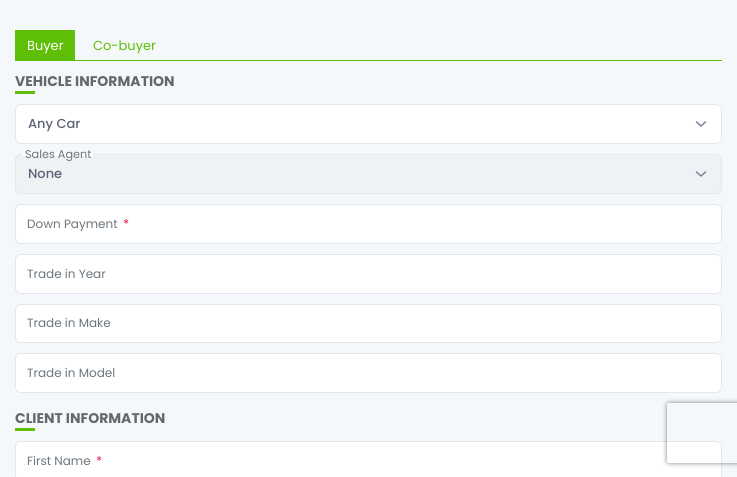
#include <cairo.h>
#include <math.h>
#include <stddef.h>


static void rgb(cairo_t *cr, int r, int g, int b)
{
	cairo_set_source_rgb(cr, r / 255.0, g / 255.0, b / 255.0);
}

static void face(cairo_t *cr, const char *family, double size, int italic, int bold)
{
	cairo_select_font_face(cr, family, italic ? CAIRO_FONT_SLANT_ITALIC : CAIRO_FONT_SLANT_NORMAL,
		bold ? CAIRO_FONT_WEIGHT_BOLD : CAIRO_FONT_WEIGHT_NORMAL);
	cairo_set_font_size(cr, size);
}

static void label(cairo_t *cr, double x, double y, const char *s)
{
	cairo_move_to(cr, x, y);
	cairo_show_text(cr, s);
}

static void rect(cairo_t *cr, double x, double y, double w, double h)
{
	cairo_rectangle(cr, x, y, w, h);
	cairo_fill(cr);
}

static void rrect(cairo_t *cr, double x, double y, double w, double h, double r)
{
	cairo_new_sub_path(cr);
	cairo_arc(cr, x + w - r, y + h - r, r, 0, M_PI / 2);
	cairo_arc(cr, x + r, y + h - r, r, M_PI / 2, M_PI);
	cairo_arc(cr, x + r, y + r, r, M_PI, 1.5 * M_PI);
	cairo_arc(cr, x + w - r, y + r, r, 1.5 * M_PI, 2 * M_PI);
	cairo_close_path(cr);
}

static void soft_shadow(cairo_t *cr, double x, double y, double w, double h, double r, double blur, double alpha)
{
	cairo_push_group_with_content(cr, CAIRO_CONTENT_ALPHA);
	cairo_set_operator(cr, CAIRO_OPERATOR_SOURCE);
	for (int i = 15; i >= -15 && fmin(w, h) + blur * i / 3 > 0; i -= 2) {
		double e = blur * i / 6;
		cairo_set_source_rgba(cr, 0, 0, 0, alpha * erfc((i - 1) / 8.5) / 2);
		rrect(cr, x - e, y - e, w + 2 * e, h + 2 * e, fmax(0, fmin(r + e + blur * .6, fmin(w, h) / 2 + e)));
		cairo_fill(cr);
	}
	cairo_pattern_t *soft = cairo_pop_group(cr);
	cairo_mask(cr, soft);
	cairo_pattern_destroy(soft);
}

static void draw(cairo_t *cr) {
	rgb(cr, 245, 248, 250);
	cairo_paint(cr);
	rgb(cr, 95, 190, 6);
	rect(cr, 75, 60, 647, 1);
	rect(cr, 15, 30, 60, 31);
	face(cr, "Poppins", 13, 0, 0);
	rgb(cr, 255, 255, 255);
	label(cr, 27, 50, "Buyer");
	rgb(cr, 95, 190, 6);
	label(cr, 93, 50, "Co-buyer");
	face(cr, "Poppins", 14, 0, 1);
	rgb(cr, 99, 105, 107);
	label(cr, 15, 86, "VEHICLE INFORMATION");
	rgb(cr, 95, 190, 6);
	rect(cr, 15, 91, 20, 3);
	rgb(cr, 255, 255, 255);
	rrect(cr, 15, 104, 707, 40, 6);
	cairo_fill(cr);
	cairo_new_path(cr);
	cairo_move_to(cr, 696.5, 122);
	cairo_line_to(cr, 701, 126);
	cairo_line_to(cr, 705.5, 122);
	rgb(cr, 126, 130, 153);
	cairo_set_line_width(cr, 1.5);
	cairo_set_line_cap(cr, CAIRO_LINE_CAP_ROUND);
	cairo_set_line_join(cr, CAIRO_LINE_JOIN_ROUND);
	cairo_stroke(cr);
	rrect(cr, 15.5, 104.5, 706, 39, 5.5);
	rgb(cr, 228, 230, 239);
	cairo_set_line_width(cr, 1);
	cairo_set_line_cap(cr, CAIRO_LINE_CAP_BUTT);
	cairo_set_line_join(cr, CAIRO_LINE_JOIN_MITER);
	cairo_stroke(cr);
	face(cr, "Poppins Medium", 13, 0, 0);
	rgb(cr, 94, 98, 120);
	label(cr, 28, 128, "Any Car");
	rgb(cr, 239, 242, 245);
	rrect(cr, 15, 154, 707, 40, 6);
	cairo_fill(cr);
	cairo_new_path(cr);
	cairo_move_to(cr, 696.5, 172);
	cairo_line_to(cr, 701, 176);
	cairo_line_to(cr, 705.5, 172);
	rgb(cr, 126, 130, 153);
	cairo_set_line_width(cr, 1.5);
	cairo_set_line_cap(cr, CAIRO_LINE_CAP_ROUND);
	cairo_set_line_join(cr, CAIRO_LINE_JOIN_ROUND);
	cairo_stroke(cr);
	rrect(cr, 15.5, 154.5, 706, 39, 5.5);
	rgb(cr, 228, 230, 239);
	cairo_set_line_width(cr, 1);
	cairo_set_line_cap(cr, CAIRO_LINE_CAP_BUTT);
	cairo_set_line_join(cr, CAIRO_LINE_JOIN_MITER);
	cairo_stroke(cr);
	rgb(cr, 255, 255, 255);
	rect(cr, 22, 153, 71, 3);
	face(cr, "Poppins", 11.25, 0, 0);
	rgb(cr, 108, 117, 125);
	label(cr, 25, 158, "Sales Agent");
	face(cr, "Poppins Medium", 13, 0, 0);
	rgb(cr, 94, 98, 120);
	label(cr, 28, 178, "None");
	rgb(cr, 255, 255, 255);
	rrect(cr, 15.5, 204.5, 706, 39, 5.5);
	cairo_fill_preserve(cr);
	rgb(cr, 228, 230, 239);
	cairo_stroke(cr);
	face(cr, "Poppins", 12, 0, 0);
	rgb(cr, 108, 117, 125);
	label(cr, 27, 228, "Down Payment");
	face(cr, "Poppins SemiBold", 12, 0, 0);
	rgb(cr, 241, 65, 108);
	label(cr, 123, 228, "*");
	rgb(cr, 255, 255, 255);
	rrect(cr, 15.5, 254.5, 706, 39, 5.5);
	cairo_fill_preserve(cr);
	rgb(cr, 228, 230, 239);
	cairo_stroke(cr);
	face(cr, "Poppins", 12, 0, 0);
	rgb(cr, 108, 117, 125);
	label(cr, 27, 278, "Trade in Year");
	rgb(cr, 255, 255, 255);
	rrect(cr, 15.5, 304.5, 706, 38, 5.5);
	cairo_fill_preserve(cr);
	rgb(cr, 228, 230, 239);
	cairo_stroke(cr);
	rgb(cr, 108, 117, 125);
	label(cr, 27, 327, "Trade in Make");
	rgb(cr, 255, 255, 255);
	rrect(cr, 15.5, 353.5, 706, 39, 5.5);
	cairo_fill_preserve(cr);
	rgb(cr, 228, 230, 239);
	cairo_stroke(cr);
	rgb(cr, 108, 117, 125);
	label(cr, 27, 377, "Trade in Model");
	face(cr, "Poppins", 14, 0, 1);
	rgb(cr, 99, 105, 107);
	label(cr, 15, 423, "CLIENT INFORMATION");
	rgb(cr, 95, 190, 6);
	rect(cr, 15, 428, 20, 3);
	rgb(cr, 255, 255, 255);
	rrect(cr, 15.5, 441.5, 706, 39, 5.5);
	cairo_fill_preserve(cr);
	rgb(cr, 228, 230, 239);
	cairo_stroke(cr);
	face(cr, "Poppins", 12, 0, 0);
	rgb(cr, 108, 117, 125);
	label(cr, 27, 465, "First Name");
	face(cr, "Poppins SemiBold", 12, 0, 0);
	rgb(cr, 241, 65, 108);
	label(cr, 96, 465, "*");
	cairo_save(cr);
	cairo_set_fill_rule(cr, CAIRO_FILL_RULE_EVEN_ODD);
	cairo_new_path(cr);
	cairo_move_to(cr, 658, 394);
	cairo_line_to(cr, 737, 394);
	cairo_line_to(cr, 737, 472);
	cairo_line_to(cr, 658, 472);
	cairo_close_path(cr);
	cairo_move_to(cr, 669, 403);
	cairo_line_to(cr, 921, 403);
	cairo_curve_to(cr, 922, 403, 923, 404, 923, 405);
	cairo_line_to(cr, 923, 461);
	cairo_curve_to(cr, 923, 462, 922, 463, 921, 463);
	cairo_line_to(cr, 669, 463);
	cairo_curve_to(cr, 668, 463, 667, 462, 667, 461);
	cairo_line_to(cr, 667, 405);
	cairo_curve_to(cr, 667, 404, 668, 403, 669, 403);
	cairo_close_path(cr);
	cairo_clip(cr);
	rgb(cr, 128, 128, 128);
	soft_shadow(cr, 667, 403, 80, 60, 2, 2.5, 1);
	cairo_restore(cr);
}

int main(void) {
	cairo_surface_t *surface = cairo_image_surface_create(CAIRO_FORMAT_RGB24, 737, 477);
	cairo_t *cr = cairo_create(surface);
	cairo_font_options_t *options = cairo_font_options_create();
	cairo_font_options_set_hint_metrics(options, CAIRO_HINT_METRICS_OFF);
	cairo_font_options_set_hint_style(options, CAIRO_HINT_STYLE_NONE);
	cairo_set_font_options(cr, options);
	cairo_set_miter_limit(cr, 4);
	draw(cr);
	cairo_surface_write_to_png(surface, "render.png");
	cairo_font_options_destroy(options);
	cairo_destroy(cr);
	cairo_surface_destroy(surface);
	return 0;
}
